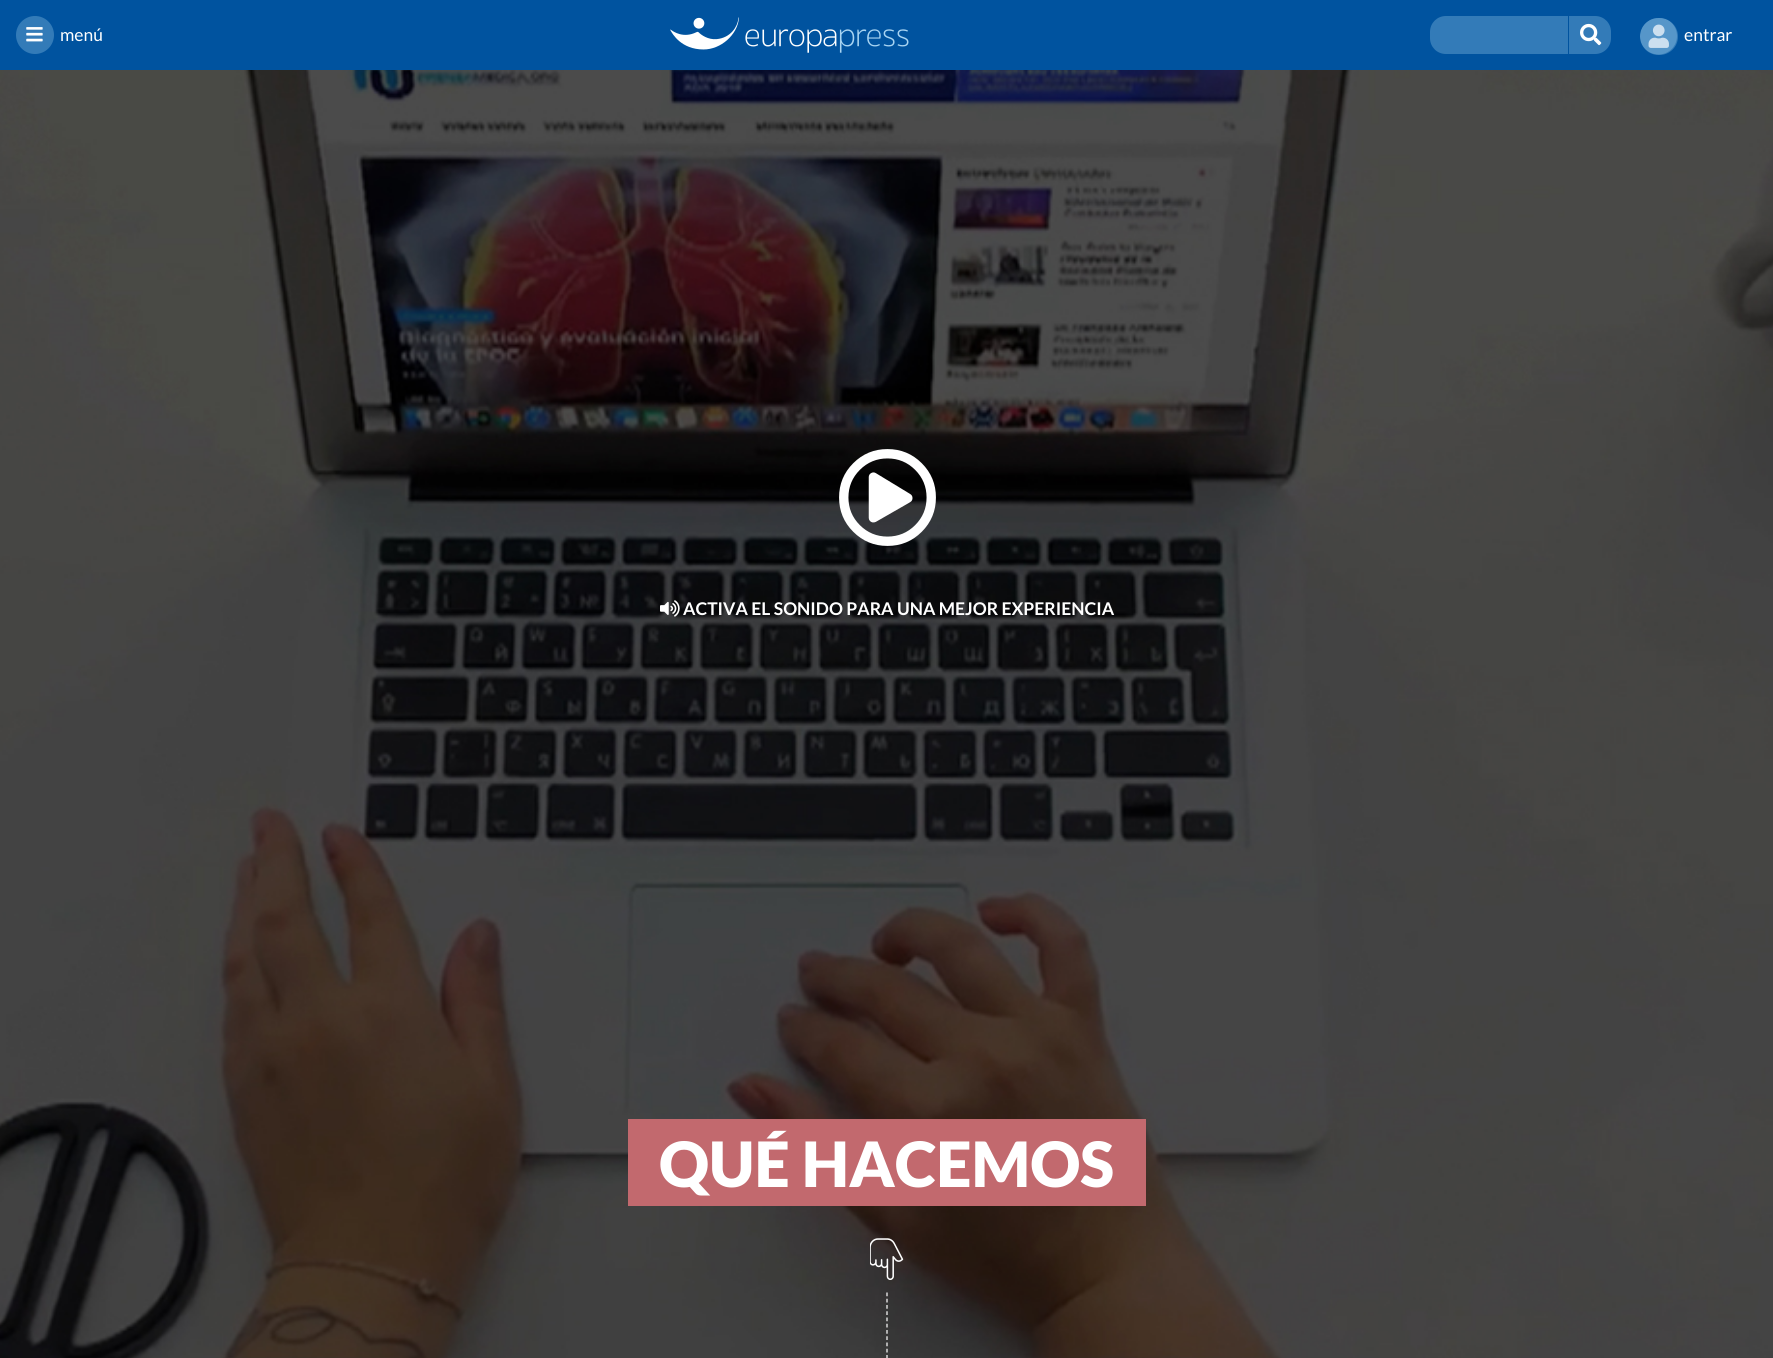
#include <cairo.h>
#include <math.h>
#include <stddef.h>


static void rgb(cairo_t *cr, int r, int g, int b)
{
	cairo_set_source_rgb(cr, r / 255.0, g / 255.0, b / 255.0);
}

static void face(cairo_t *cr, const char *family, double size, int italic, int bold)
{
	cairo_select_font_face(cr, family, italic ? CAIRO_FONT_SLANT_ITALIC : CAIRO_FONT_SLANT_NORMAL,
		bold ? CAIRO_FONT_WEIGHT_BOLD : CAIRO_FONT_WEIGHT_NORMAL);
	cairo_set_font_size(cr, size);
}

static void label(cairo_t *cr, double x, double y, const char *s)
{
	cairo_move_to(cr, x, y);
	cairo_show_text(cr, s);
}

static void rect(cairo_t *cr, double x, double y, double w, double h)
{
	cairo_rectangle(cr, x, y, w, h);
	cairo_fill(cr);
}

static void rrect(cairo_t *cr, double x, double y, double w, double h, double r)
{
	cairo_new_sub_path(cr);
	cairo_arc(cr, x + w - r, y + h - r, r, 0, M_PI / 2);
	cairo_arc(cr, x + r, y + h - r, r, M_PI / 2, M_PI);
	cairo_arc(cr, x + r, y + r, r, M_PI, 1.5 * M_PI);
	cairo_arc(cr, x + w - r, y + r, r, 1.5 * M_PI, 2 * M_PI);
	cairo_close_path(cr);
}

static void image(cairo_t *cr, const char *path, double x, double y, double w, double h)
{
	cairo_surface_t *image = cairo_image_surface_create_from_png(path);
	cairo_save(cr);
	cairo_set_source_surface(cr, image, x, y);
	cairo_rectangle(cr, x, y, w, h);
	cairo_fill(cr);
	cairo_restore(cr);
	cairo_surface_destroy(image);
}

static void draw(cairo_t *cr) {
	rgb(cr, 255, 255, 255);
	cairo_paint(cr);
	rgb(cr, 0, 83, 159);
	rect(cr, 0, 0, 1773, 70);
	rgb(cr, 51, 123, 184);
	cairo_arc(cr, 35, 35, 19, 0, 2 * M_PI);
	cairo_fill(cr);
	image(cr, "image0.png", 26, 27, 17, 15);
	face(cr, "Lato", 17.5, 0, 0);
	rgb(cr, 255, 255, 255);
	label(cr, 60, 41, "menú");
	image(cr, "image1.png", 670, 17, 239, 36);
	rgb(cr, 51, 123, 184);
	cairo_new_path(cr);
	cairo_move_to(cr, 1446, 16);
	cairo_line_to(cr, 1568, 16);
	cairo_line_to(cr, 1568, 54);
	cairo_line_to(cr, 1446, 54);
	cairo_curve_to(cr, 1437, 54, 1430, 47, 1430, 38);
	cairo_line_to(cr, 1430, 32);
	cairo_curve_to(cr, 1430, 23, 1437, 16, 1446, 16);
	cairo_close_path(cr);
	cairo_fill(cr);
	cairo_new_path(cr);
	cairo_move_to(cr, 1568, 16);
	cairo_line_to(cr, 1595, 16);
	cairo_curve_to(cr, 1604, 16, 1611, 23, 1611, 32);
	cairo_line_to(cr, 1611, 38);
	cairo_curve_to(cr, 1611, 47, 1604, 54, 1595, 54);
	cairo_line_to(cr, 1568, 54);
	cairo_close_path(cr);
	cairo_fill(cr);
	rgb(cr, 0, 83, 159);
	rect(cr, 1568, 16, 1, 38);
	image(cr, "image2.png", 1580, 23, 22, 23);
	rgb(cr, 51, 123, 184);
	rrect(cr, 1640, 18, 38, 37, 18.5);
	cairo_fill(cr);
	image(cr, "image3.png", 1640, 18, 37, 37);
	rgb(cr, 255, 255, 255);
	label(cr, 1684, 41, "entrar");
	image(cr, "image4.png", 0, 70, 1773, 1288);
	image(cr, "image5.png", 839, 449, 97, 97);
	image(cr, "image6.png", 660, 600, 20, 17);
	face(cr, "Lato", 17.5, 0, 1);
	label(cr, 683, 615, "ACTIVA EL SONIDO PARA UNA MEJOR EXPERIENCIA");
	rgb(cr, 194, 105, 110);
	rect(cr, 628, 1119, 518, 87);
	face(cr, "Lato Black", 62.5, 0, 0);
	rgb(cr, 255, 255, 255);
	label(cr, 659, 1187, "QUÉ HACEMOS");
	image(cr, "image7.png", 870, 1238, 34, 42);
	cairo_new_path(cr);
	cairo_move_to(cr, 887, 1292.5);
	cairo_line_to(cr, 887, 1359);
	cairo_set_line_width(cr, 1.2);
	cairo_set_dash(cr, (double[]){3.75, 2.5}, 2, 0);
	cairo_stroke(cr);
}

int main(void) {
	cairo_surface_t *surface = cairo_image_surface_create(CAIRO_FORMAT_RGB24, 1773, 1358);
	cairo_t *cr = cairo_create(surface);
	cairo_font_options_t *options = cairo_font_options_create();
	cairo_font_options_set_hint_metrics(options, CAIRO_HINT_METRICS_OFF);
	cairo_font_options_set_hint_style(options, CAIRO_HINT_STYLE_NONE);
	cairo_set_font_options(cr, options);
	cairo_set_miter_limit(cr, 4);
	draw(cr);
	cairo_surface_write_to_png(surface, "render.png");
	cairo_font_options_destroy(options);
	cairo_destroy(cr);
	cairo_surface_destroy(surface);
	return 0;
}
